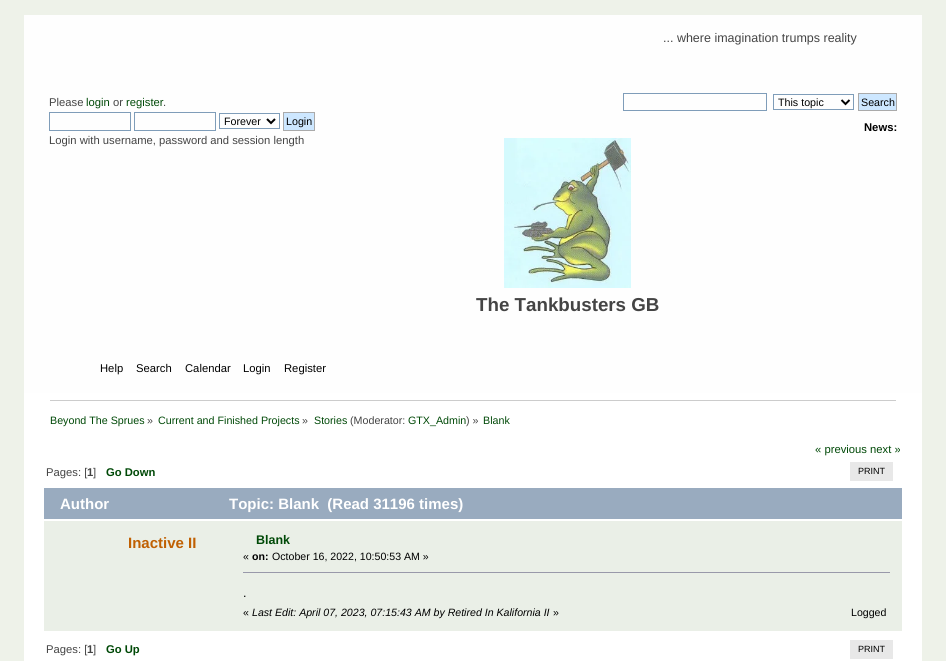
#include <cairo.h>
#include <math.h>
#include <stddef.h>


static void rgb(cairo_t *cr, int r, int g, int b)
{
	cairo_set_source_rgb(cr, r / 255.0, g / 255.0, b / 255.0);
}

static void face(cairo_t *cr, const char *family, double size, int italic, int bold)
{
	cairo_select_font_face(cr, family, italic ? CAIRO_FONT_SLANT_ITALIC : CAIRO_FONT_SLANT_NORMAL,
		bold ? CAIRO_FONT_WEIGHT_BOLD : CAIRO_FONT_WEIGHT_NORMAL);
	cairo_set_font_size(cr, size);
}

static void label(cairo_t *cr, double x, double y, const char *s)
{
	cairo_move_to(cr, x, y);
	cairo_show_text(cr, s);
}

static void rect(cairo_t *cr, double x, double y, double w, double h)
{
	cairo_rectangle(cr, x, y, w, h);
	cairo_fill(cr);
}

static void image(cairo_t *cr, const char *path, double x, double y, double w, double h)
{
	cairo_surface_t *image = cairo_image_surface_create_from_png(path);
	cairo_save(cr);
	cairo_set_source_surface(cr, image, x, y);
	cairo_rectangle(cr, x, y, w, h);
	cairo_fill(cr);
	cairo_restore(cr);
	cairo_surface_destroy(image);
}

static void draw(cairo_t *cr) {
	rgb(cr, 238, 242, 233);
	cairo_paint(cr);
	rgb(cr, 254, 254, 254);
	rect(cr, 24, 15, 898, 378);
	face(cr, "Liberation Sans", 12.5, 0, 0);
	rgb(cr, 68, 68, 68);
	label(cr, 663, 42, "... where imagination trumps reality");
	face(cr, "Liberation Sans", 11.25, 0, 0);
	label(cr, 49, 106, "Please");
	rgb(cr, 0, 73, 7);
	label(cr, 86, 106, "login");
	rgb(cr, 68, 68, 68);
	label(cr, 113, 106, "or");
	rgb(cr, 0, 73, 7);
	label(cr, 126, 106, "register");
	rgb(cr, 68, 68, 68);
	label(cr, 163, 106, ".");
	cairo_rectangle(cr, 49.5, 112.5, 81, 18);
	rgb(cr, 127, 157, 185);
	cairo_set_line_width(cr, 1);
	cairo_stroke(cr);
	cairo_rectangle(cr, 134.5, 112.5, 81, 18);
	cairo_stroke(cr);
	cairo_rectangle(cr, 219.5, 113.5, 60, 15);
	cairo_stroke(cr);
	cairo_new_path(cr);
	cairo_move_to(cr, 267, 119);
	cairo_line_to(cr, 271, 123);
	cairo_line_to(cr, 275, 119);
	rgb(cr, 0, 0, 0);
	cairo_set_line_width(cr, 2);
	cairo_stroke(cr);
	face(cr, "Liberation Sans", 10.7, 0, 0);
	label(cr, 224, 125, "Forever");
	rgb(cr, 205, 231, 255);
	cairo_rectangle(cr, 283.5, 112.5, 31, 18);
	cairo_fill_preserve(cr);
	rgb(cr, 170, 170, 170);
	cairo_set_line_width(cr, 1);
	cairo_stroke(cr);
	rgb(cr, 0, 0, 0);
	label(cr, 286, 125, "Login");
	face(cr, "Liberation Sans", 11.25, 0, 0);
	rgb(cr, 68, 68, 68);
	label(cr, 49, 144, "Login with username, password and session length");
	cairo_rectangle(cr, 623.5, 93.5, 143, 17);
	rgb(cr, 127, 157, 185);
	cairo_stroke(cr);
	cairo_rectangle(cr, 773.5, 94.5, 80, 15);
	cairo_stroke(cr);
	cairo_new_path(cr);
	cairo_move_to(cr, 841.5, 100);
	cairo_line_to(cr, 845.5, 104);
	cairo_line_to(cr, 849.5, 100);
	rgb(cr, 0, 0, 0);
	cairo_set_line_width(cr, 2);
	cairo_stroke(cr);
	face(cr, "Liberation Sans", 10.7, 0, 0);
	label(cr, 778, 106, "This topic");
	rgb(cr, 205, 231, 255);
	cairo_rectangle(cr, 858.5, 93.5, 38, 17);
	cairo_fill_preserve(cr);
	rgb(cr, 170, 170, 170);
	cairo_set_line_width(cr, 1);
	cairo_stroke(cr);
	rgb(cr, 0, 0, 0);
	label(cr, 861, 106, "Search");
	face(cr, "Liberation Sans", 11.25, 0, 1);
	label(cr, 864, 131, "News:");
	image(cr, "image0.png", 504, 138, 127, 150);
	face(cr, "Liberation Sans", 18.75, 0, 1);
	rgb(cr, 68, 68, 68);
	label(cr, 476, 311, "The Tankbusters GB");
	face(cr, "Liberation Sans", 11.25, 0, 0);
	rgb(cr, 0, 0, 0);
	label(cr, 100, 372, "Help");
	label(cr, 136, 372, "Search");
	label(cr, 185, 372, "Calendar");
	label(cr, 243, 372, "Login");
	label(cr, 284, 372, "Register");
	rgb(cr, 255, 255, 255);
	rect(cr, 24, 393, 898, 268);
	rgb(cr, 204, 204, 204);
	rect(cr, 50, 400, 846, 1);
	face(cr, "Liberation Sans", 10.7, 0, 0);
	rgb(cr, 0, 73, 7);
	label(cr, 50, 424, "Beyond The Sprues");
	rgb(cr, 68, 68, 68);
	label(cr, 147, 424, "»");
	rgb(cr, 0, 73, 7);
	label(cr, 158, 424, "Current and Finished Projects");
	rgb(cr, 68, 68, 68);
	label(cr, 302, 424, "»");
	rgb(cr, 0, 73, 7);
	label(cr, 314, 424, "Stories");
	rgb(cr, 68, 68, 68);
	label(cr, 350, 424, "(Moderator:");
	rgb(cr, 0, 73, 7);
	label(cr, 408, 424, "GTX_Admin");
	rgb(cr, 68, 68, 68);
	label(cr, 466, 424, ") »");
	rgb(cr, 0, 73, 7);
	label(cr, 483, 424, "Blank");
	face(cr, "Liberation Sans", 11.25, 0, 0);
	label(cr, 815, 453, "« previous next »");
	rgb(cr, 68, 68, 68);
	label(cr, 46, 476, "Pages: [");
	face(cr, "Liberation Sans", 11.25, 0, 1);
	label(cr, 87, 476, "1");
	face(cr, "Liberation Sans", 11.25, 0, 0);
	label(cr, 93, 476, "]");
	face(cr, "Liberation Sans", 11.25, 0, 1);
	rgb(cr, 0, 73, 7);
	label(cr, 106, 476, "Go Down");
	rgb(cr, 232, 232, 232);
	rect(cr, 850, 462, 43, 19);
	face(cr, "Liberation Sans", 9, 0, 0);
	rgb(cr, 0, 0, 0);
	label(cr, 858, 474, "PRINT");
	rgb(cr, 153, 171, 191);
	rect(cr, 44, 488, 858, 31);
	face(cr, "Liberation Sans", 15, 0, 1);
	rgb(cr, 255, 255, 255);
	label(cr, 60, 509, "Author");
	label(cr, 229, 509, "Topic: Blank  (Read 31196 times)");
	rgb(cr, 234, 239, 231);
	rect(cr, 44, 521, 858, 110);
	rgb(cr, 192, 96, 2);
	label(cr, 128, 548, "Inactive II");
	face(cr, "Liberation Sans", 12.5, 0, 1);
	rgb(cr, 0, 73, 7);
	label(cr, 256, 544, "Blank");
	face(cr, "Liberation Sans", 10.6, 0, 0);
	rgb(cr, 0, 0, 0);
	label(cr, 243, 560, "«");
	face(cr, "Liberation Sans", 10.6, 0, 1);
	label(cr, 252, 560, "on:");
	face(cr, "Liberation Sans", 10.6, 0, 0);
	label(cr, 272, 560, "October 16, 2022, 10:50:53 AM »");
	rgb(cr, 153, 153, 170);
	rect(cr, 243, 572, 647, 1);
	face(cr, "Liberation Sans", 12.5, 0, 0);
	rgb(cr, 0, 0, 0);
	label(cr, 243, 597, ".");
	face(cr, "Liberation Sans", 10.6, 0, 0);
	label(cr, 243, 616, "«");
	face(cr, "Liberation Sans", 10.6, 1, 0);
	label(cr, 252, 616, "Last Edit: April 07, 2023, 07:15:43 AM by Retired In Kalifornia II");
	face(cr, "Liberation Sans", 10.6, 0, 0);
	label(cr, 553, 616, "»");
	label(cr, 851, 616, "Logged");
	face(cr, "Liberation Sans", 11.25, 0, 0);
	rgb(cr, 68, 68, 68);
	label(cr, 46, 653, "Pages: [");
	face(cr, "Liberation Sans", 11.25, 0, 1);
	label(cr, 87, 653, "1");
	face(cr, "Liberation Sans", 11.25, 0, 0);
	label(cr, 93, 653, "]");
	face(cr, "Liberation Sans", 11.25, 0, 1);
	rgb(cr, 0, 73, 7);
	label(cr, 106, 653, "Go Up");
	rgb(cr, 232, 232, 232);
	rect(cr, 850, 640, 43, 19);
	face(cr, "Liberation Sans", 9, 0, 0);
	rgb(cr, 0, 0, 0);
	label(cr, 858, 652, "PRINT");
}

int main(void) {
	cairo_surface_t *surface = cairo_image_surface_create(CAIRO_FORMAT_RGB24, 946, 661);
	cairo_t *cr = cairo_create(surface);
	cairo_font_options_t *options = cairo_font_options_create();
	cairo_font_options_set_hint_metrics(options, CAIRO_HINT_METRICS_OFF);
	cairo_font_options_set_hint_style(options, CAIRO_HINT_STYLE_NONE);
	cairo_set_font_options(cr, options);
	cairo_set_miter_limit(cr, 4);
	draw(cr);
	cairo_surface_write_to_png(surface, "render.png");
	cairo_font_options_destroy(options);
	cairo_destroy(cr);
	cairo_surface_destroy(surface);
	return 0;
}
